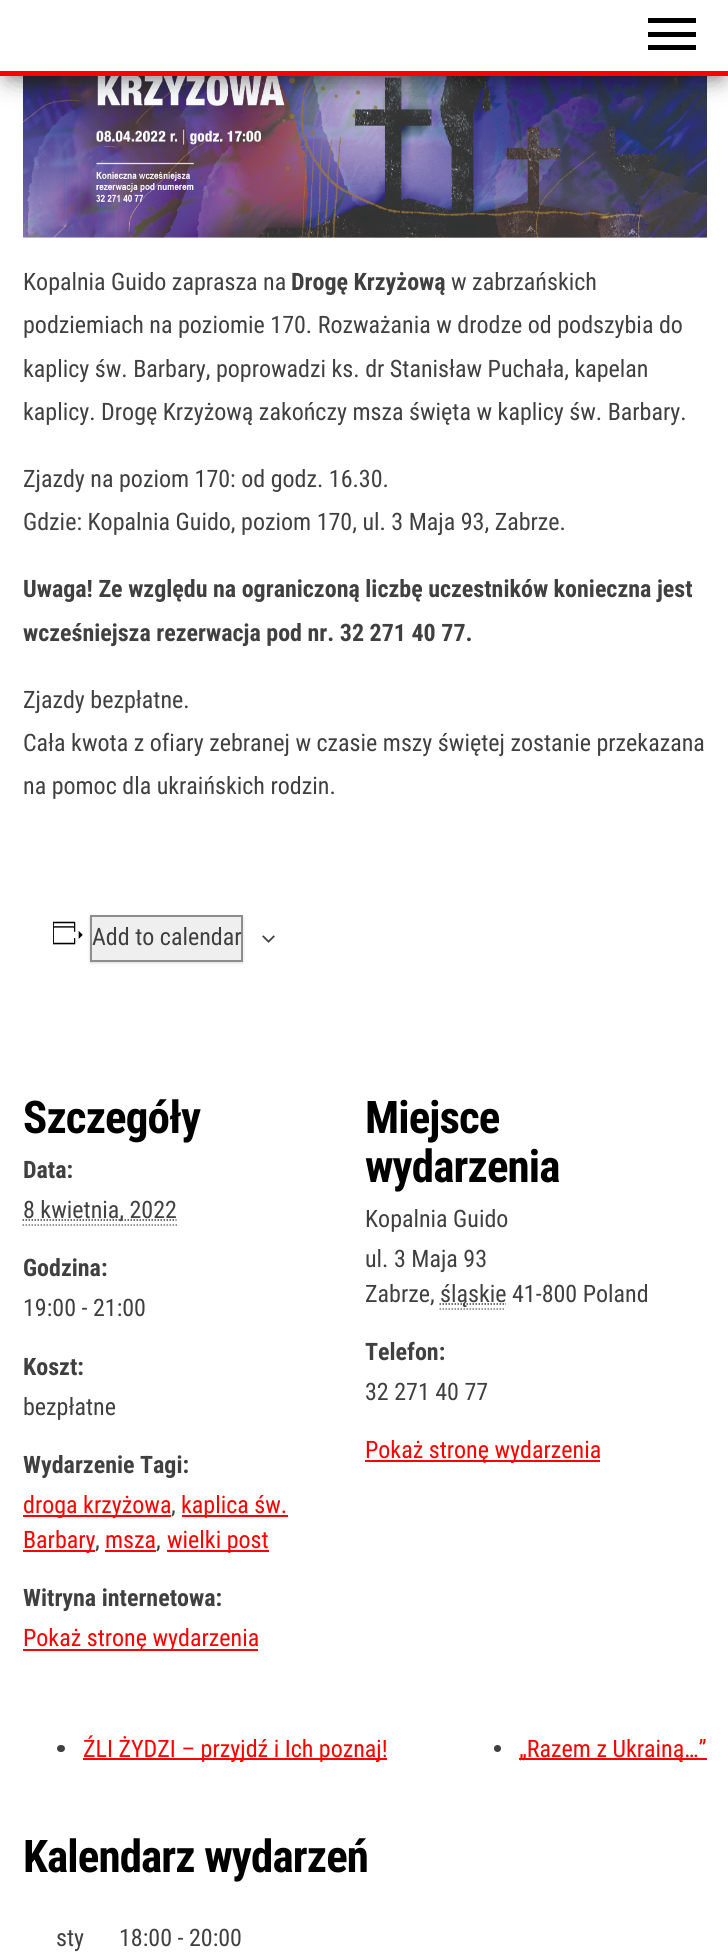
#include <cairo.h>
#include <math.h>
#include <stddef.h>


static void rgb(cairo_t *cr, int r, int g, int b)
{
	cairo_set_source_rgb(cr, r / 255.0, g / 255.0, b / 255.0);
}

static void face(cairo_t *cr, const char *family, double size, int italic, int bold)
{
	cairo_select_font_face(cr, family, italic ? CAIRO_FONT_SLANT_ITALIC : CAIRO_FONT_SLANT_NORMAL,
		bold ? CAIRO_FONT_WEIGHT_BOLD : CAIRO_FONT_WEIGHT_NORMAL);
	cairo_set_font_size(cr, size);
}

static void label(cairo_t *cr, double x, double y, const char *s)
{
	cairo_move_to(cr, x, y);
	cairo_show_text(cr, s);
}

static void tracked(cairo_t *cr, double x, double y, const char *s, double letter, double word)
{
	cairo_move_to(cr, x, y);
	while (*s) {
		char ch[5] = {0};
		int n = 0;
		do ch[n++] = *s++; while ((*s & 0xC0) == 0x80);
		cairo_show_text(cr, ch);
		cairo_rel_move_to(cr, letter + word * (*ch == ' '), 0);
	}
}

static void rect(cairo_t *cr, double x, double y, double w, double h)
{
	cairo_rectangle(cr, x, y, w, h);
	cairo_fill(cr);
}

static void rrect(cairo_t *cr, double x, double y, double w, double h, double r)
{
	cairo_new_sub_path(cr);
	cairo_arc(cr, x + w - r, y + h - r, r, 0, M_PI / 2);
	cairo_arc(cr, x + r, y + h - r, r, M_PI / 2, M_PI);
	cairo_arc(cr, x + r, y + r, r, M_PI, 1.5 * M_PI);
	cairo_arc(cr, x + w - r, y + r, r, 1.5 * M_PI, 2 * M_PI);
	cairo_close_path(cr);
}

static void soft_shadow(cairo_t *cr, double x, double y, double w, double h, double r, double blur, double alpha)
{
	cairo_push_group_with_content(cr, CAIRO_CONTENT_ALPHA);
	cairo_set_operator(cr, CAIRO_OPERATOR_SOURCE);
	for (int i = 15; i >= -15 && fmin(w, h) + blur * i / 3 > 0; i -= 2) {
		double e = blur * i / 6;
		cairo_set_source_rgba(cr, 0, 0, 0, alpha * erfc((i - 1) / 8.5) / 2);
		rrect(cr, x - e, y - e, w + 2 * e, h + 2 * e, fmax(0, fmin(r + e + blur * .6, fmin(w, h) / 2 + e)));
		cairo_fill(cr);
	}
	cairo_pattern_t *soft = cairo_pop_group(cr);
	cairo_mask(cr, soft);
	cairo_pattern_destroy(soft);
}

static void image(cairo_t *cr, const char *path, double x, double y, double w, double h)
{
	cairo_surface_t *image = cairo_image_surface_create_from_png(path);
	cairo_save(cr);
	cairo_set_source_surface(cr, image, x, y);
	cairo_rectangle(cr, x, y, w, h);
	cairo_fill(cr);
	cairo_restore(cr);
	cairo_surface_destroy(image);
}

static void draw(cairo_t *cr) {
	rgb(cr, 255, 255, 255);
	cairo_paint(cr);
	image(cr, "image0.png", 23, 76, 684, 162);
	rgb(cr, 0, 0, 0);
	soft_shadow(cr, 8, 20, 714, 60, 0, 7.5, 0.2);
	soft_shadow(cr, 0, 5, 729, 75, 0, 15, 0.12);
	soft_shadow(cr, 18, 33, 693, 39, 0, 15, 0.42);
	rgb(cr, 255, 255, 255);
	rect(cr, 0, 0, 728, 71);
	rgb(cr, 255, 0, 0);
	rect(cr, 0, 71, 728, 5);
	rgb(cr, 0, 0, 0);
	rect(cr, 648, 18, 48, 5);
	rect(cr, 648, 32, 48, 5);
	rect(cr, 648, 45, 48, 5);
	face(cr, "Roboto Condensed", 24, 0, 0);
	rgb(cr, 64, 64, 64);
	label(cr, 23, 290, "Kopalnia Guido zaprasza na");
	face(cr, "Roboto Condensed", 24, 0, 1);
	label(cr, 291, 290, "Drogę Krzyżową");
	face(cr, "Roboto Condensed", 24, 0, 0);
	label(cr, 451, 290, "w zabrzańskich");
	label(cr, 23, 333, "podziemiach na poziomie 170. Rozważania w drodze od podszybia do");
	label(cr, 23, 377, "kaplicy św. Barbary, poprowadzi ks. dr Stanisław Puchała, kapelan");
	label(cr, 23, 420, "kaplicy. Drogę Krzyżową zakończy msza święta w kaplicy św. Barbary.");
	label(cr, 23, 487, "Zjazdy na poziom 170: od godz. 16.30.");
	label(cr, 23, 530, "Gdzie: Kopalnia Guido, poziom 170, ul. 3 Maja 93, Zabrze.");
	face(cr, "Roboto Condensed", 24, 0, 1);
	label(cr, 23, 597, "Uwaga! Ze względu na ograniczoną liczbę uczestników konieczna jest");
	label(cr, 23, 641, "wcześniejsza rezerwacja pod nr. 32 271 40 77.");
	face(cr, "Roboto Condensed", 24, 0, 0);
	label(cr, 23, 708, "Zjazdy bezpłatne.");
	label(cr, 23, 751, "Cała kwota z ofiary zebranej w czasie mszy świętej zostanie przekazana");
	label(cr, 23, 794, "na pomoc dla ukraińskich rodzin.");
	image(cr, "image1.png", 53, 921, 30, 24);
	rgb(cr, 0, 0, 0);
	soft_shadow(cr, 90, 917, 153, 46, 0, 1.5, 0.15);
	rgb(cr, 239, 239, 239);
	cairo_rectangle(cr, 91, 916, 151, 45);
	cairo_fill_preserve(cr);
	rgb(cr, 142, 142, 142);
	cairo_stroke(cr);
	rgb(cr, 64, 64, 64);
	label(cr, 92, 945, "Add to calendar");
	image(cr, "image2.png", 262, 935, 13, 8);
	face(cr, "Roboto Condensed", 45, 0, 1);
	rgb(cr, 0, 0, 0);
	tracked(cr, 23, 1133, "Szczegóły", -0.9, 0);
	face(cr, "Roboto Condensed", 24, 0, 1);
	rgb(cr, 64, 64, 64);
	label(cr, 23, 1178, "Data:");
	cairo_new_path(cr);
	cairo_move_to(cr, 22.5, 1220);
	cairo_line_to(cr, 176.5, 1220);
	cairo_set_line_width(cr, 1.5);
	cairo_set_dash(cr, (double[]){1.5, 1.5}, 2, 0);
	cairo_stroke(cr);
	face(cr, "Roboto Condensed", 24, 0, 0);
	label(cr, 23, 1218, "8 kwietnia, 2022");
	cairo_new_path(cr);
	cairo_move_to(cr, 22.5, 1225);
	cairo_line_to(cr, 177, 1225);
	rgb(cr, 119, 119, 119);
	cairo_stroke(cr);
	face(cr, "Roboto Condensed", 24, 0, 1);
	rgb(cr, 64, 64, 64);
	label(cr, 23, 1276, "Godzina:");
	face(cr, "Roboto Condensed", 24, 0, 0);
	label(cr, 23, 1316, "19:00 - 21:00");
	face(cr, "Roboto Condensed", 24, 0, 1);
	label(cr, 23, 1375, "Koszt:");
	face(cr, "Roboto Condensed", 24, 0, 0);
	label(cr, 23, 1415, "bezpłatne");
	face(cr, "Roboto Condensed", 24, 0, 1);
	label(cr, 23, 1473, "Wydarzenie Tagi:");
	rgb(cr, 255, 0, 0);
	rect(cr, 23, 1515, 148, 2);
	face(cr, "Roboto Condensed", 24, 0, 0);
	label(cr, 23, 1513, "droga krzyżowa");
	rgb(cr, 64, 64, 64);
	label(cr, 171, 1513, ",");
	rgb(cr, 255, 0, 0);
	rect(cr, 182, 1515, 106, 2);
	label(cr, 181, 1513, "kaplica św.");
	rect(cr, 23, 1550, 72, 2);
	label(cr, 23, 1548, "Barbary");
	rgb(cr, 64, 64, 64);
	label(cr, 95, 1548, ",");
	rgb(cr, 255, 0, 0);
	label(cr, 105, 1548, "msza");
	rect(cr, 105, 1550, 51, 2);
	rgb(cr, 64, 64, 64);
	label(cr, 156, 1548, ",");
	rgb(cr, 255, 0, 0);
	rect(cr, 167, 1550, 102, 2);
	label(cr, 167, 1548, "wielki post");
	face(cr, "Roboto Condensed", 24, 0, 1);
	rgb(cr, 64, 64, 64);
	label(cr, 23, 1606, "Witryna internetowa:");
	rgb(cr, 255, 0, 0);
	rect(cr, 23, 1649, 235, 2);
	face(cr, "Roboto Condensed", 24, 0, 0);
	label(cr, 23, 1646, "Pokaż stronę wydarzenia");
	face(cr, "Roboto Condensed", 45, 0, 1);
	rgb(cr, 0, 0, 0);
	tracked(cr, 365, 1133, "Miejsce", -0.9, 0);
	tracked(cr, 365, 1182, "wydarzenia", -0.9, 0);
	face(cr, "Roboto Condensed", 24, 0, 0);
	rgb(cr, 64, 64, 64);
	label(cr, 365, 1227, "Kopalnia Guido");
	label(cr, 365, 1267, "ul. 3 Maja 93");
	label(cr, 365, 1302, "Zabrze,");
	cairo_new_path(cr);
	cairo_move_to(cr, 439.5, 1304);
	cairo_line_to(cr, 506, 1304);
	cairo_stroke(cr);
	label(cr, 440, 1302, "śląskie 41-800 Poland");
	cairo_new_path(cr);
	cairo_move_to(cr, 439.5, 1309);
	cairo_line_to(cr, 505.5, 1309);
	rgb(cr, 119, 119, 119);
	cairo_stroke(cr);
	face(cr, "Roboto Condensed", 24, 0, 1);
	rgb(cr, 64, 64, 64);
	label(cr, 365, 1360, "Telefon:");
	face(cr, "Roboto Condensed", 24, 0, 0);
	label(cr, 365, 1400, "32 271 40 77");
	rgb(cr, 255, 0, 0);
	rect(cr, 365, 1460, 235, 2);
	label(cr, 365, 1458, "Pokaż stronę wydarzenia");
	rgb(cr, 64, 64, 64);
	rrect(cr, 57, 1745, 8, 7, 3.5);
	cairo_fill(cr);
	rgb(cr, 255, 0, 0);
	rect(cr, 83, 1758, 304, 2);
	label(cr, 83, 1757, "ŹLI ŻYDZI – przyjdź i Ich poznaj!");
	rgb(cr, 64, 64, 64);
	cairo_new_path(cr);
	cairo_arc(cr, 497.5, 1748.5, 3.5, 0, 2 * M_PI);
	cairo_fill(cr);
	rgb(cr, 255, 0, 0);
	rect(cr, 519, 1758, 188, 2);
	label(cr, 519, 1757, "„Razem z Ukrainą…”");
	face(cr, "Roboto Condensed", 45, 0, 1);
	rgb(cr, 0, 0, 0);
	tracked(cr, 23, 1872, "Kalendarz wydarzeń", -0.9, 0);
	face(cr, "Roboto Condensed", 24, 0, 0);
	rgb(cr, 64, 64, 64);
	label(cr, 56, 1946, "sty");
	label(cr, 119, 1946, "18:00 - 20:00");
}

int main(void) {
	cairo_surface_t *surface = cairo_image_surface_create(CAIRO_FORMAT_RGB24, 728, 1958);
	cairo_t *cr = cairo_create(surface);
	cairo_font_options_t *options = cairo_font_options_create();
	cairo_font_options_set_hint_metrics(options, CAIRO_HINT_METRICS_OFF);
	cairo_font_options_set_hint_style(options, CAIRO_HINT_STYLE_NONE);
	cairo_set_font_options(cr, options);
	cairo_set_miter_limit(cr, 4);
	draw(cr);
	cairo_surface_write_to_png(surface, "render.png");
	cairo_font_options_destroy(options);
	cairo_destroy(cr);
	cairo_surface_destroy(surface);
	return 0;
}
